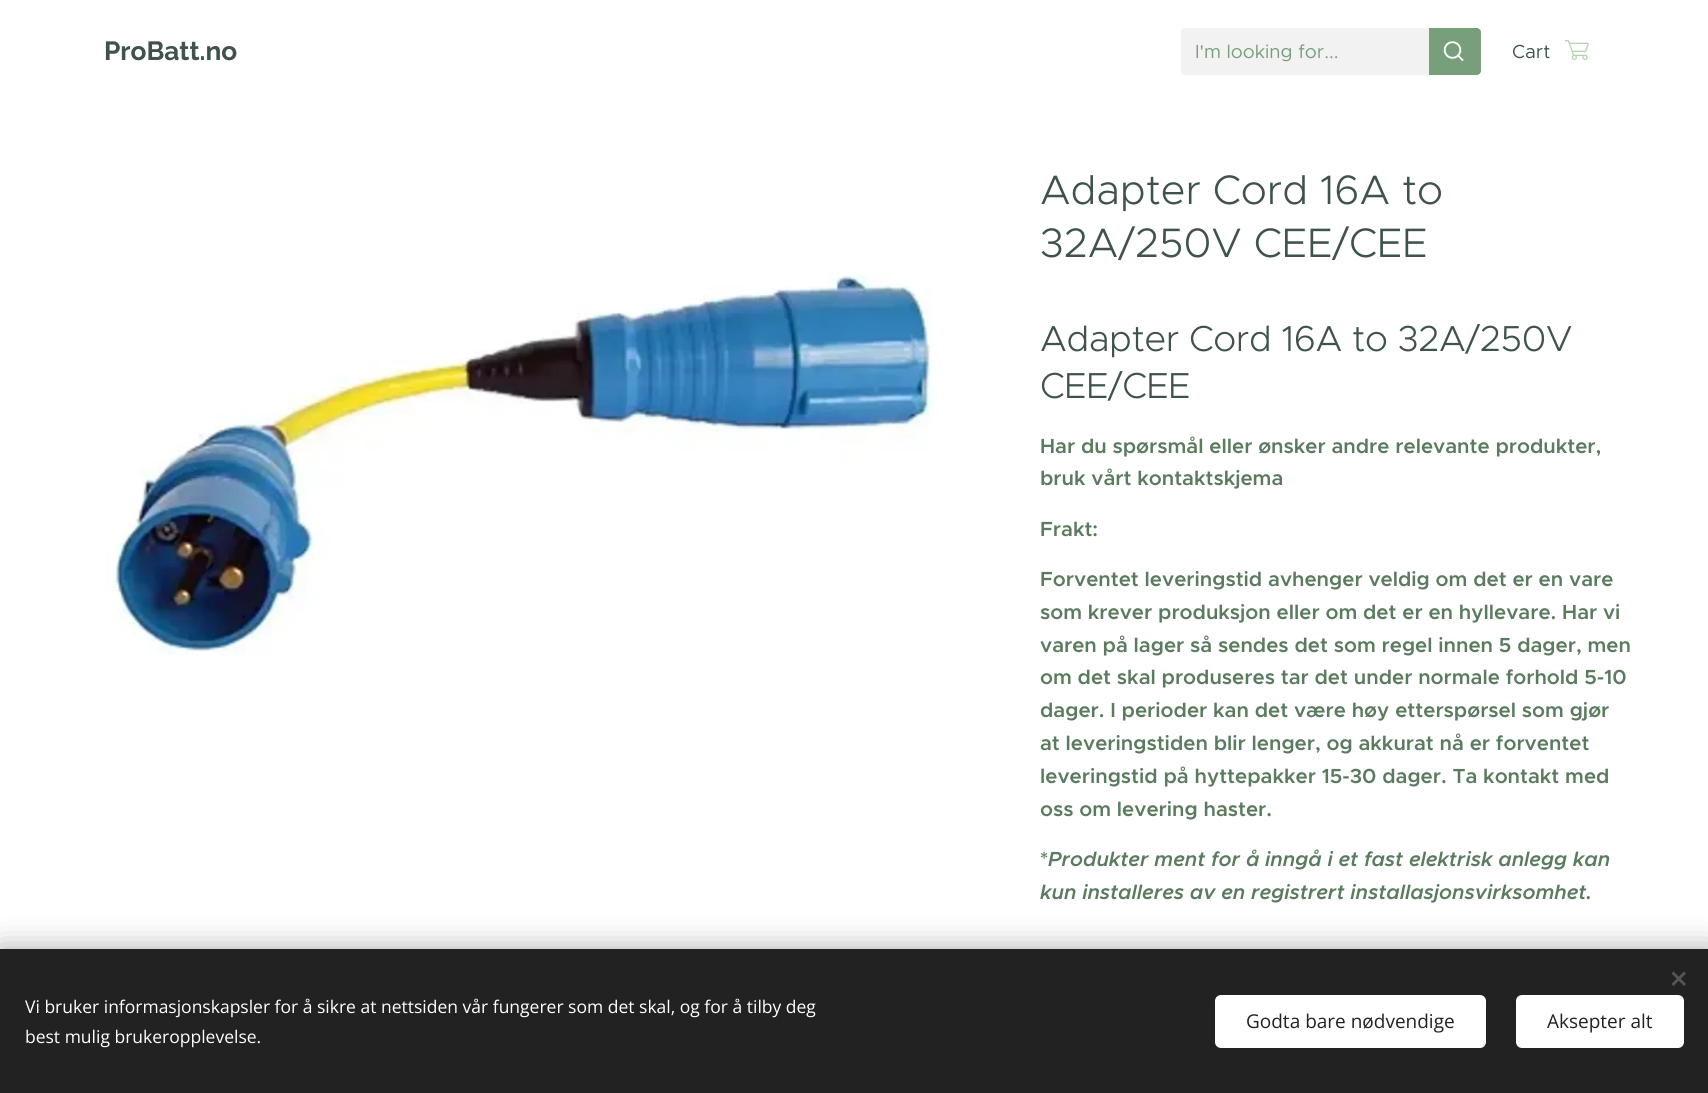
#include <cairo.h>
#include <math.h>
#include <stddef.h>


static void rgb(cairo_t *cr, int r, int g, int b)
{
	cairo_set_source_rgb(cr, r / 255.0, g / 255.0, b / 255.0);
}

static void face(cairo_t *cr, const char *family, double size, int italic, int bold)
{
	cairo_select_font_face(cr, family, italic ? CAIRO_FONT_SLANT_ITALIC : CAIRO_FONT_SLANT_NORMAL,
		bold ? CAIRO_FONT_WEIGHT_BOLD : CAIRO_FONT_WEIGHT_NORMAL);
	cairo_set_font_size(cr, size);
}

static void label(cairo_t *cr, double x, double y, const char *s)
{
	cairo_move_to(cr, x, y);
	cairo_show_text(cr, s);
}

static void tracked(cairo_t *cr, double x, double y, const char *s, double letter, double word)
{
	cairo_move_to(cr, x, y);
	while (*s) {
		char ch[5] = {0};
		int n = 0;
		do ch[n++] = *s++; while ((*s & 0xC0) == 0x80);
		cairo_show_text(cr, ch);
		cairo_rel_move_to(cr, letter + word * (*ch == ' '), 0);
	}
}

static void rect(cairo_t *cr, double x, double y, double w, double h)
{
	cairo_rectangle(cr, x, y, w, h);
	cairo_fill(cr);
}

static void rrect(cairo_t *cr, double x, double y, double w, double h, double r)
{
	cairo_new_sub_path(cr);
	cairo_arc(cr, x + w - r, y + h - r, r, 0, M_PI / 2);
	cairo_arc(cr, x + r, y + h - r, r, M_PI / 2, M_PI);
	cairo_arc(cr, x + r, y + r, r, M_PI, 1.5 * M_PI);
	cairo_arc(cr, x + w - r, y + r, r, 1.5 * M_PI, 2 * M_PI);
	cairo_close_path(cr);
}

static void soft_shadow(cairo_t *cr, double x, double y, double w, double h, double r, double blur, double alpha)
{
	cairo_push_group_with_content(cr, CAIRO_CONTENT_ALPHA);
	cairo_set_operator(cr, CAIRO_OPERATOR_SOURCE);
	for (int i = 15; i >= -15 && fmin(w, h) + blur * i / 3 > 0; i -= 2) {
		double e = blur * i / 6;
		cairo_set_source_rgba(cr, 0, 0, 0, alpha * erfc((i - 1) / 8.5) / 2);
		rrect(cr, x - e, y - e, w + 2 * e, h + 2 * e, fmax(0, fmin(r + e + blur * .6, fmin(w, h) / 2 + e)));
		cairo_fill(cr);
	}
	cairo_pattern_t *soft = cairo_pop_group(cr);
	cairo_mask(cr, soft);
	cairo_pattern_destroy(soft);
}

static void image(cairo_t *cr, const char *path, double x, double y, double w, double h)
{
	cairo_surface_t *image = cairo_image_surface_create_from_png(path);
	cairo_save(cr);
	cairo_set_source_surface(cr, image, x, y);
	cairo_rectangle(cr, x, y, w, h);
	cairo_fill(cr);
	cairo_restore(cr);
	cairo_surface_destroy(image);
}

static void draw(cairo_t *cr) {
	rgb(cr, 255, 255, 255);
	cairo_paint(cr);
	face(cr, "Raleway", 26.25, 0, 1);
	rgb(cr, 63, 82, 76);
	label(cr, 104, 60, "ProBatt.no");
	rgb(cr, 242, 242, 242);
	cairo_new_path(cr);
	cairo_move_to(cr, 1185, 28);
	cairo_line_to(cr, 1429, 28);
	cairo_line_to(cr, 1429, 75);
	cairo_line_to(cr, 1185, 75);
	cairo_curve_to(cr, 1183, 75, 1181, 73, 1181, 71);
	cairo_line_to(cr, 1181, 32);
	cairo_curve_to(cr, 1181, 30, 1183, 28, 1185, 28);
	cairo_close_path(cr);
	cairo_fill(cr);
	face(cr, "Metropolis", 19, 0, 0);
	rgb(cr, 118, 159, 122);
	label(cr, 1195, 58, "I'm looking for...");
	cairo_new_path(cr);
	cairo_move_to(cr, 1429, 28);
	cairo_line_to(cr, 1477, 28);
	cairo_curve_to(cr, 1479, 28, 1481, 30, 1481, 32);
	cairo_line_to(cr, 1481, 71);
	cairo_curve_to(cr, 1481, 73, 1479, 75, 1477, 75);
	cairo_line_to(cr, 1429, 75);
	cairo_close_path(cr);
	cairo_fill(cr);
	image(cr, "image0.png", 1443, 41, 21, 21);
	rgb(cr, 63, 82, 76);
	label(cr, 1512, 58, "Cart");
	image(cr, "image1.png", 1565, 40, 24, 20);
	face(cr, "Metropolis Light", 41.25, 0, 0);
	label(cr, 1040, 204, "Adapter Cord 16A to");
	label(cr, 1040, 257, "32A/250V CEE/CEE");
	image(cr, "image2.png", 106, 273, 828, 382);
	face(cr, "Metropolis Light", 36.25, 0, 0);
	tracked(cr, 1040, 351, "Adapter Cord 16A to 32A/250V", -0.35, 0);
	tracked(cr, 1040, 398, "CEE/CEE", -0.35, 0);
	face(cr, "Metropolis SemiBold", 20.5, 0, 0);
	rgb(cr, 90, 123, 94);
	label(cr, 1040, 453, "Har du spørsmål eller ønsker andre relevante produkter,");
	label(cr, 1040, 485, "bruk vårt kontaktskjema");
	label(cr, 1040, 536, "Frakt:");
	label(cr, 1040, 586, "Forventet leveringstid avhenger veldig om det er en vare");
	label(cr, 1040, 619, "som krever produksjon eller om det er en hyllevare. Har vi");
	label(cr, 1040, 652, "varen på lager så sendes det som regel innen 5 dager, men");
	label(cr, 1040, 684, "om det skal produseres tar det under normale forhold 5-10");
	label(cr, 1040, 717, "dager. I perioder kan det være høy etterspørsel som gjør");
	label(cr, 1040, 750, "at leveringstiden blir lenger, og akkurat nå er forventet");
	label(cr, 1040, 783, "leveringstid på hyttepakker 15-30 dager. Ta kontakt med");
	label(cr, 1040, 816, "oss om levering haster.");
	label(cr, 1040, 866, "*");
	face(cr, "Metropolis SemiBold", 20.5, 1, 0);
	label(cr, 1048, 866, "Produkter ment for å inngå i et fast elektrisk anlegg kan");
	label(cr, 1040, 899, "kun installeres av en registrert installasjonsvirksomhet.");
	rgb(cr, 0, 0, 0);
	soft_shadow(cr, 0, 949, 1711, 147, 0, 15.5, 0.33);
	rgb(cr, 34, 34, 34);
	rect(cr, 0, 949, 1708, 144);
	rgb(cr, 85, 85, 85);
	cairo_new_path(cr);
	cairo_move_to(cr, 1671.5, 984);
	cairo_line_to(cr, 1684, 971.5);
	cairo_line_to(cr, 1686, 973.5);
	cairo_line_to(cr, 1673.5, 986);
	cairo_close_path(cr);
	cairo_fill(cr);
	cairo_new_path(cr);
	cairo_move_to(cr, 1673.5, 971.5);
	cairo_line_to(cr, 1686, 984);
	cairo_line_to(cr, 1684, 986);
	cairo_line_to(cr, 1671.5, 973.5);
	cairo_close_path(cr);
	cairo_fill(cr);
	face(cr, "Open Sans", 17.5, 0, 0);
	rgb(cr, 255, 255, 255);
	label(cr, 25, 1013, "Vi bruker informasjonskapsler for å sikre at nettsiden vår fungerer som det skal, og for å tilby deg");
	label(cr, 25, 1043, "best mulig brukeropplevelse.");
	rrect(cr, 1215, 995, 271, 53, 6);
	cairo_fill(cr);
	face(cr, "Open Sans", 19, 0, 0);
	rgb(cr, 34, 34, 34);
	label(cr, 1246, 1028, "Godta bare nødvendige");
	rgb(cr, 255, 255, 255);
	rrect(cr, 1516, 995, 168, 53, 6);
	cairo_fill(cr);
	rgb(cr, 34, 34, 34);
	label(cr, 1547, 1028, "Aksepter alt");
}

int main(void) {
	cairo_surface_t *surface = cairo_image_surface_create(CAIRO_FORMAT_RGB24, 1708, 1093);
	cairo_t *cr = cairo_create(surface);
	cairo_font_options_t *options = cairo_font_options_create();
	cairo_font_options_set_hint_metrics(options, CAIRO_HINT_METRICS_OFF);
	cairo_font_options_set_hint_style(options, CAIRO_HINT_STYLE_NONE);
	cairo_set_font_options(cr, options);
	cairo_set_miter_limit(cr, 4);
	draw(cr);
	cairo_surface_write_to_png(surface, "render.png");
	cairo_font_options_destroy(options);
	cairo_destroy(cr);
	cairo_surface_destroy(surface);
	return 0;
}
